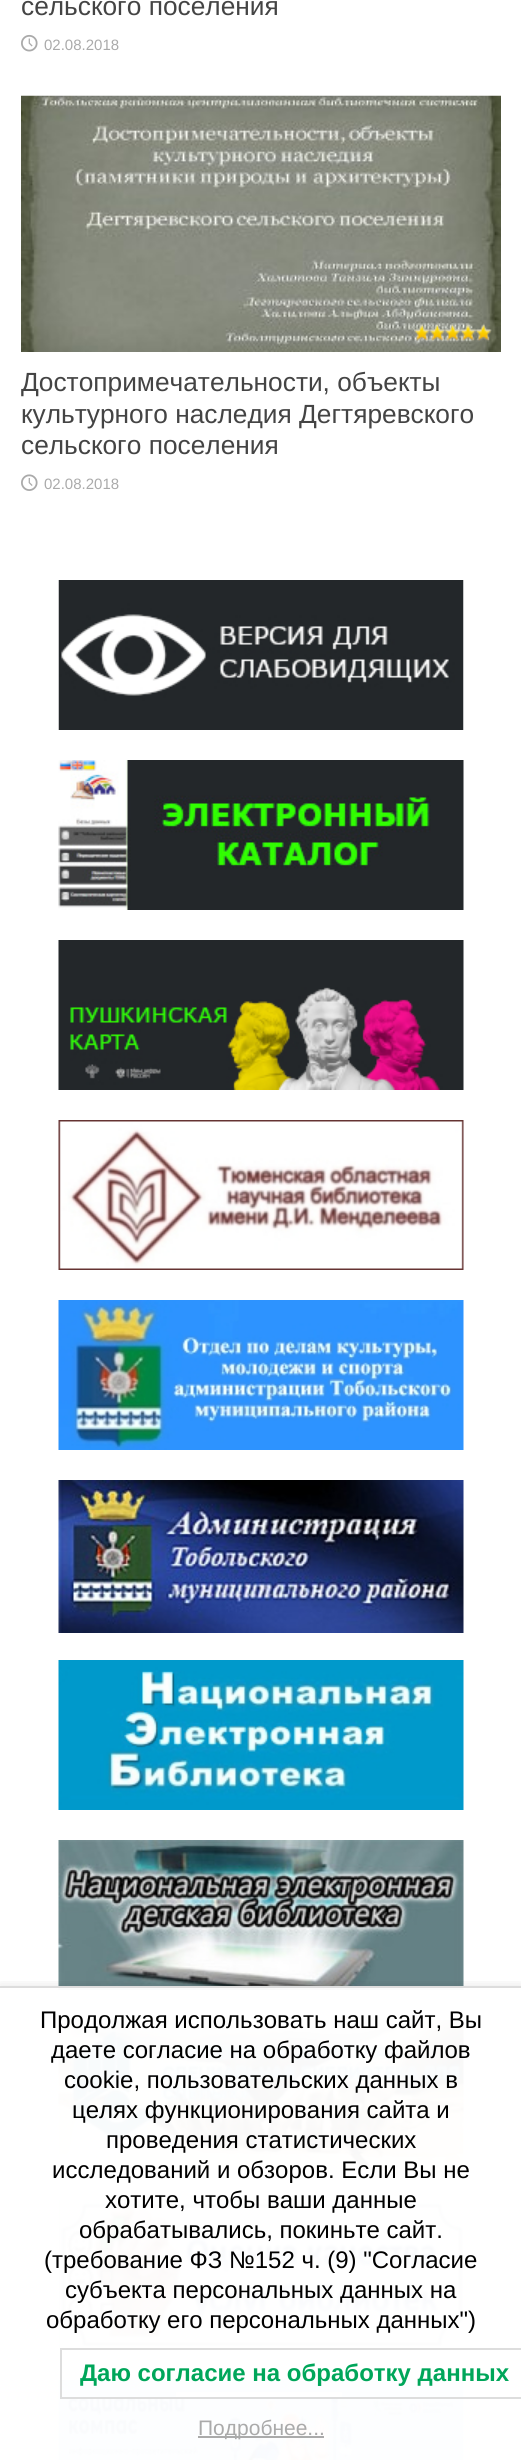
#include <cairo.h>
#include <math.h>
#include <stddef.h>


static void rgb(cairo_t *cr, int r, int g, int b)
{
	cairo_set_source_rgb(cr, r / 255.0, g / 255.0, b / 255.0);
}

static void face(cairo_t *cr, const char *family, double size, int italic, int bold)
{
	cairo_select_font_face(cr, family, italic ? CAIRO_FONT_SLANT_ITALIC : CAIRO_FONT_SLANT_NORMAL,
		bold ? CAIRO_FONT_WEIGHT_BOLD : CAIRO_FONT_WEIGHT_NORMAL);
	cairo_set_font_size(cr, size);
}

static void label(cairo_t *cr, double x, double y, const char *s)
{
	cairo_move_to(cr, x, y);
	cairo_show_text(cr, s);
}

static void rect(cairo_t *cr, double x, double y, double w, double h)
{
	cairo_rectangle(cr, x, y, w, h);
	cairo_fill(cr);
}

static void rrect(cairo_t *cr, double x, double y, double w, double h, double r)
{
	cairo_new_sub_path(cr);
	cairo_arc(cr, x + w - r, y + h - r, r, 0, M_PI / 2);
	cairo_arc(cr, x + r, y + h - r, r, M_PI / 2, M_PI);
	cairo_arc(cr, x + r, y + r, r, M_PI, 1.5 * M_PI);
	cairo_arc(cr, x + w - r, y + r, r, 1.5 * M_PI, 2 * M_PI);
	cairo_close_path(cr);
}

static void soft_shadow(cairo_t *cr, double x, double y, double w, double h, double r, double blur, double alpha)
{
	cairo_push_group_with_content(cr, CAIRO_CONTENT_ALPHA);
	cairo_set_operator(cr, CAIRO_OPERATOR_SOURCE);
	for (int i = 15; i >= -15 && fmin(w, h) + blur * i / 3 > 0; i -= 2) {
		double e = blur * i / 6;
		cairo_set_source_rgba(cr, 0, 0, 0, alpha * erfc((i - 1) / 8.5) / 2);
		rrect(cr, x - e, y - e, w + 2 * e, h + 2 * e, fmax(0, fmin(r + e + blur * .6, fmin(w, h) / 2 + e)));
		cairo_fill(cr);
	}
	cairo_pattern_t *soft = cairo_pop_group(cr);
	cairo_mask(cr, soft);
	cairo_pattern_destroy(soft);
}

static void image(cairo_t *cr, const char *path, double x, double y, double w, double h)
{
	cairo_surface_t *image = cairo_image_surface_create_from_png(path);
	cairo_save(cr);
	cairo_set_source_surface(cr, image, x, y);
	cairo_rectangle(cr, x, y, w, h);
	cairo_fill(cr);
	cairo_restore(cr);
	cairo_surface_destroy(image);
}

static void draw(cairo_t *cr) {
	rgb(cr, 255, 255, 255);
	cairo_paint(cr);
	face(cr, "Liberation Sans", 26.3, 0, 0);
	rgb(cr, 68, 68, 68);
	label(cr, 21, 15, "сельского поселения");
	image(cr, "image0.png", 21, 34, 17, 18);
	face(cr, "Liberation Sans", 15, 0, 0);
	rgb(cr, 170, 170, 170);
	label(cr, 44, 50, "02.08.2018");
	image(cr, "image1.png", 21, 95, 480, 257);
	image(cr, "image2.png", 414, 324, 78, 18);
	image(cr, "image3.png", 414, 323, 78, 19);
	face(cr, "Liberation Sans", 26.3, 0, 0);
	rgb(cr, 68, 68, 68);
	label(cr, 21, 391, "Достопримечательности, объекты");
	label(cr, 21, 423, "культурного наследия Дегтяревского");
	label(cr, 21, 454, "сельского поселения");
	image(cr, "image4.png", 21, 474, 17, 17);
	face(cr, "Liberation Sans", 15, 0, 0);
	rgb(cr, 170, 170, 170);
	label(cr, 44, 489, "02.08.2018");
	image(cr, "image5.png", 58, 580, 406, 150);
	image(cr, "image6.png", 58, 760, 406, 150);
	image(cr, "image7.png", 58, 940, 406, 150);
	image(cr, "image8.png", 58, 1120, 406, 150);
	image(cr, "image9.png", 58, 1300, 406, 150);
	image(cr, "image10.png", 58, 1480, 406, 153);
	image(cr, "image11.png", 58, 1660, 406, 150);
	image(cr, "image12.png", 58, 1840, 406, 150);
	image(cr, "image13.png", 58, 2020, 406, 150);
	image(cr, "image14.png", 58, 2200, 406, 150);
	image(cr, "image15.png", 58, 2380, 406, 80);
	cairo_save(cr);
	cairo_rectangle(cr, 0, 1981, 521, 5);
	cairo_clip(cr);
	rgb(cr, 0, 0, 0);
	soft_shadow(cr, 0, 1986, 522, 474, 0, 6, 0.1);
	cairo_restore(cr);
	cairo_set_source_rgba(cr, 1, 1, 1, 0.97);
	rect(cr, 58, 1988, 406, 472);
	rgb(cr, 221, 221, 221);
	rect(cr, 0, 1986, 521, 2);
	face(cr, "Liberation Sans", 24, 0, 0);
	rgb(cr, 0, 0, 0);
	label(cr, 40, 2028, "Продолжая использовать наш сайт, Вы");
	label(cr, 51, 2058, "даете согласие на обработку файлов");
	label(cr, 64, 2088, "cookie, пользовательских данных в");
	label(cr, 72, 2118, "целях функционирования сайта и");
	label(cr, 106, 2148, "проведения статистических");
	label(cr, 52, 2178, "исследований и обзоров. Если Вы не");
	label(cr, 105, 2208, "хотите, чтобы ваши данные");
	label(cr, 79, 2238, "обрабатывались, покиньте сайт.");
	label(cr, 44, 2268, "(требование ФЗ №152 ч. (9) \"Согласие");
	label(cr, 65, 2298, "субъекта персональных данных на");
	label(cr, 46, 2328, "обработку его персональных данных\")");
	rgb(cr, 255, 255, 255);
	rect(cr, 176, 2392, 166, 5);
	cairo_rectangle(cr, 61, 2349, 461, 49);
	rgb(cr, 221, 221, 221);
	cairo_stroke(cr);
	face(cr, "Liberation Sans", 24, 0, 1);
	rgb(cr, 0, 166, 90);
	label(cr, 80, 2381, "Даю согласие на обработку данных");
	rgb(cr, 170, 170, 170);
	rect(cr, 198, 2436, 126, 2);
	face(cr, "Liberation Sans", 21, 0, 0);
	label(cr, 198, 2435, "Подробнее...");
}

int main(void) {
	cairo_surface_t *surface = cairo_image_surface_create(CAIRO_FORMAT_RGB24, 521, 2460);
	cairo_t *cr = cairo_create(surface);
	cairo_font_options_t *options = cairo_font_options_create();
	cairo_font_options_set_hint_metrics(options, CAIRO_HINT_METRICS_OFF);
	cairo_font_options_set_hint_style(options, CAIRO_HINT_STYLE_NONE);
	cairo_set_font_options(cr, options);
	cairo_set_miter_limit(cr, 4);
	draw(cr);
	cairo_surface_write_to_png(surface, "render.png");
	cairo_font_options_destroy(options);
	cairo_destroy(cr);
	cairo_surface_destroy(surface);
	return 0;
}
